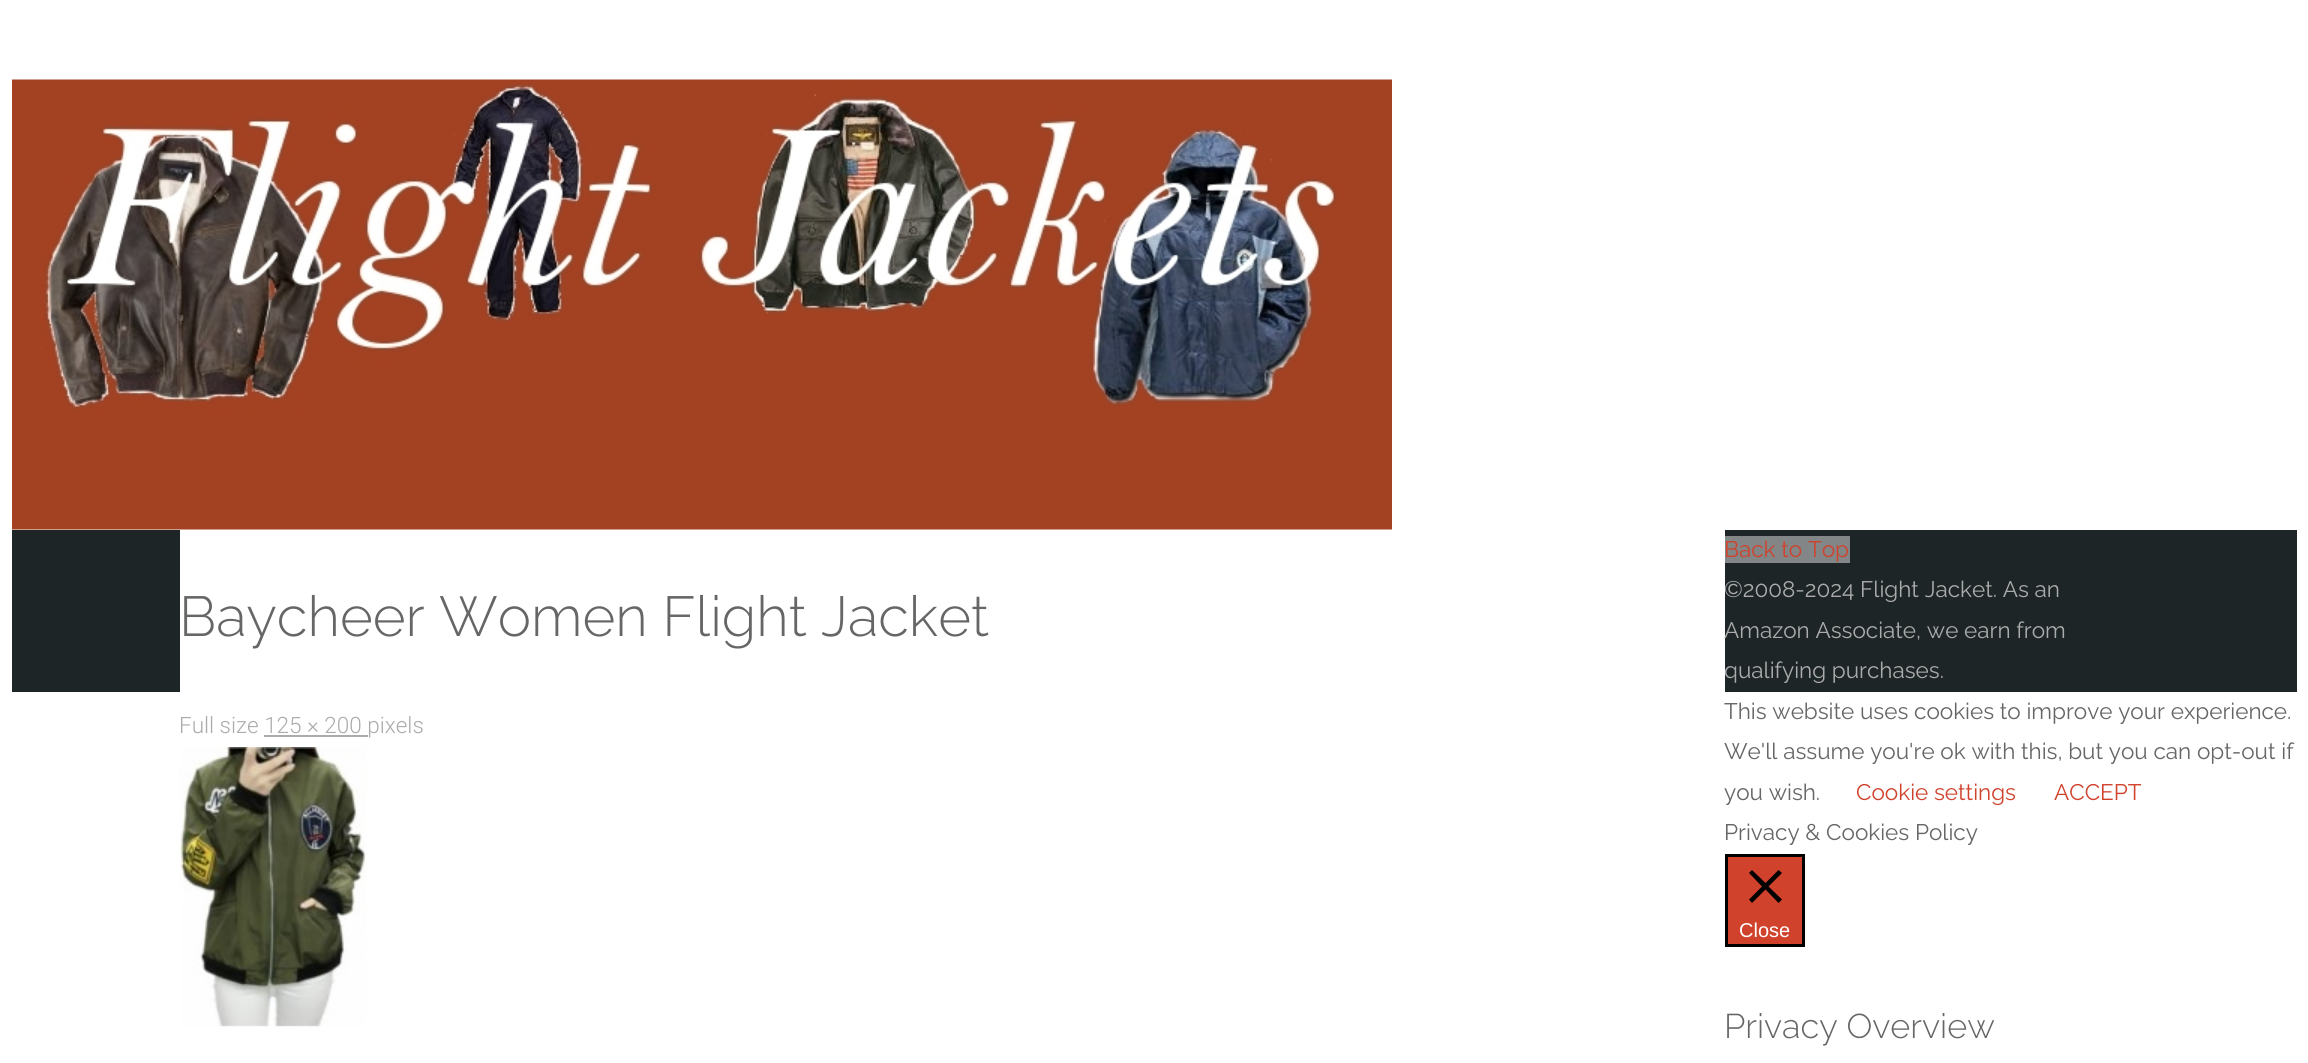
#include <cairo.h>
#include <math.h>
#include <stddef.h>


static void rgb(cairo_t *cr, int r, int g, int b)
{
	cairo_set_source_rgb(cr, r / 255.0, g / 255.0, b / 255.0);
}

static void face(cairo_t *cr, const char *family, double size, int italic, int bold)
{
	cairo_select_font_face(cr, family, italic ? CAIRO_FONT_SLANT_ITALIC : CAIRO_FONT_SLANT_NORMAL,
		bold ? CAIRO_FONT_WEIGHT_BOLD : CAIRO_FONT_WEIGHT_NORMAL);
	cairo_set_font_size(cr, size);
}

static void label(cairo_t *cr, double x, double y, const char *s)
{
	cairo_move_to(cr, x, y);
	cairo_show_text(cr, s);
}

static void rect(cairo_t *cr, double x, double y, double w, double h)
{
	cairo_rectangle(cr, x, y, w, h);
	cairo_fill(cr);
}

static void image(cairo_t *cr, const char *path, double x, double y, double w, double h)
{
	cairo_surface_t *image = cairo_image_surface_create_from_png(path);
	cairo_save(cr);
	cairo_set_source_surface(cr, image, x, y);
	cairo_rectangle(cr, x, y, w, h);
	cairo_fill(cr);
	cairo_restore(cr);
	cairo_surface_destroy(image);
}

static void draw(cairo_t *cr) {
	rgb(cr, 255, 255, 255);
	cairo_paint(cr);
	image(cr, "image0.png", 12, 79, 1380, 451);
	rgb(cr, 29, 37, 39);
	rect(cr, 12, 530, 2285, 162);
	rgb(cr, 255, 255, 255);
	rect(cr, 180, 530, 1545, 162);
	face(cr, "Raleway Light", 56.25, 0, 0);
	rgb(cr, 102, 102, 102);
	label(cr, 179, 636, "Baycheer Women Flight Jacket");
	face(cr, "Roboto Light", 22.5, 0, 0);
	rgb(cr, 171, 171, 171);
	label(cr, 179, 733, "Full size 125 × 200 pixels");
	rect(cr, 264, 735, 104, 2);
	image(cr, "image1.png", 180, 747, 187, 280);
	rgb(cr, 130, 134, 135);
	rect(cr, 1725, 536, 125, 27);
	face(cr, "Raleway", 22.5, 0, 0);
	rgb(cr, 208, 66, 44);
	label(cr, 1724, 557, "Back to Top");
	rgb(cr, 171, 171, 171);
	label(cr, 1724, 597, "©2008-2024 Flight Jacket. As an");
	label(cr, 1724, 638, "Amazon Associate, we earn from");
	label(cr, 1724, 678, "qualifying purchases.");
	rgb(cr, 102, 102, 102);
	label(cr, 1724, 719, "This website uses cookies to improve your experience.");
	label(cr, 1724, 759, "We'll assume you're ok with this, but you can opt-out if");
	label(cr, 1724, 800, "you wish.");
	rgb(cr, 208, 66, 44);
	label(cr, 1856, 800, "Cookie settings");
	label(cr, 2054, 800, "ACCEPT");
	rgb(cr, 102, 102, 102);
	label(cr, 1724, 840, "Privacy & Cookies Policy");
	rgb(cr, 208, 66, 44);
	cairo_rectangle(cr, 1726.5, 855.5, 77, 90);
	cairo_fill_preserve(cr);
	rgb(cr, 0, 0, 0);
	cairo_set_line_width(cr, 3);
	cairo_stroke(cr);
	cairo_new_path(cr);
	cairo_move_to(cr, 1782, 873);
	cairo_line_to(cr, 1778.5, 870);
	cairo_line_to(cr, 1765.5, 883);
	cairo_line_to(cr, 1752, 870);
	cairo_line_to(cr, 1749, 873);
	cairo_line_to(cr, 1762, 886.5);
	cairo_line_to(cr, 1749, 899.5);
	cairo_line_to(cr, 1752, 903);
	cairo_line_to(cr, 1765.5, 889.5);
	cairo_line_to(cr, 1778.5, 903);
	cairo_line_to(cr, 1782, 899.5);
	cairo_line_to(cr, 1768.5, 886.5);
	cairo_close_path(cr);
	cairo_fill(cr);
	face(cr, "Liberation Sans", 20, 0, 0);
	rgb(cr, 255, 255, 255);
	label(cr, 1739, 937, "Close");
	face(cr, "Raleway Light", 34.25, 0, 0);
	rgb(cr, 102, 102, 102);
	label(cr, 1724, 1038, "Privacy Overview");
}

int main(void) {
	cairo_surface_t *surface = cairo_image_surface_create(CAIRO_FORMAT_RGB24, 2308, 1063);
	cairo_t *cr = cairo_create(surface);
	cairo_font_options_t *options = cairo_font_options_create();
	cairo_font_options_set_hint_metrics(options, CAIRO_HINT_METRICS_OFF);
	cairo_font_options_set_hint_style(options, CAIRO_HINT_STYLE_NONE);
	cairo_set_font_options(cr, options);
	cairo_set_miter_limit(cr, 4);
	draw(cr);
	cairo_surface_write_to_png(surface, "render.png");
	cairo_font_options_destroy(options);
	cairo_destroy(cr);
	cairo_surface_destroy(surface);
	return 0;
}
